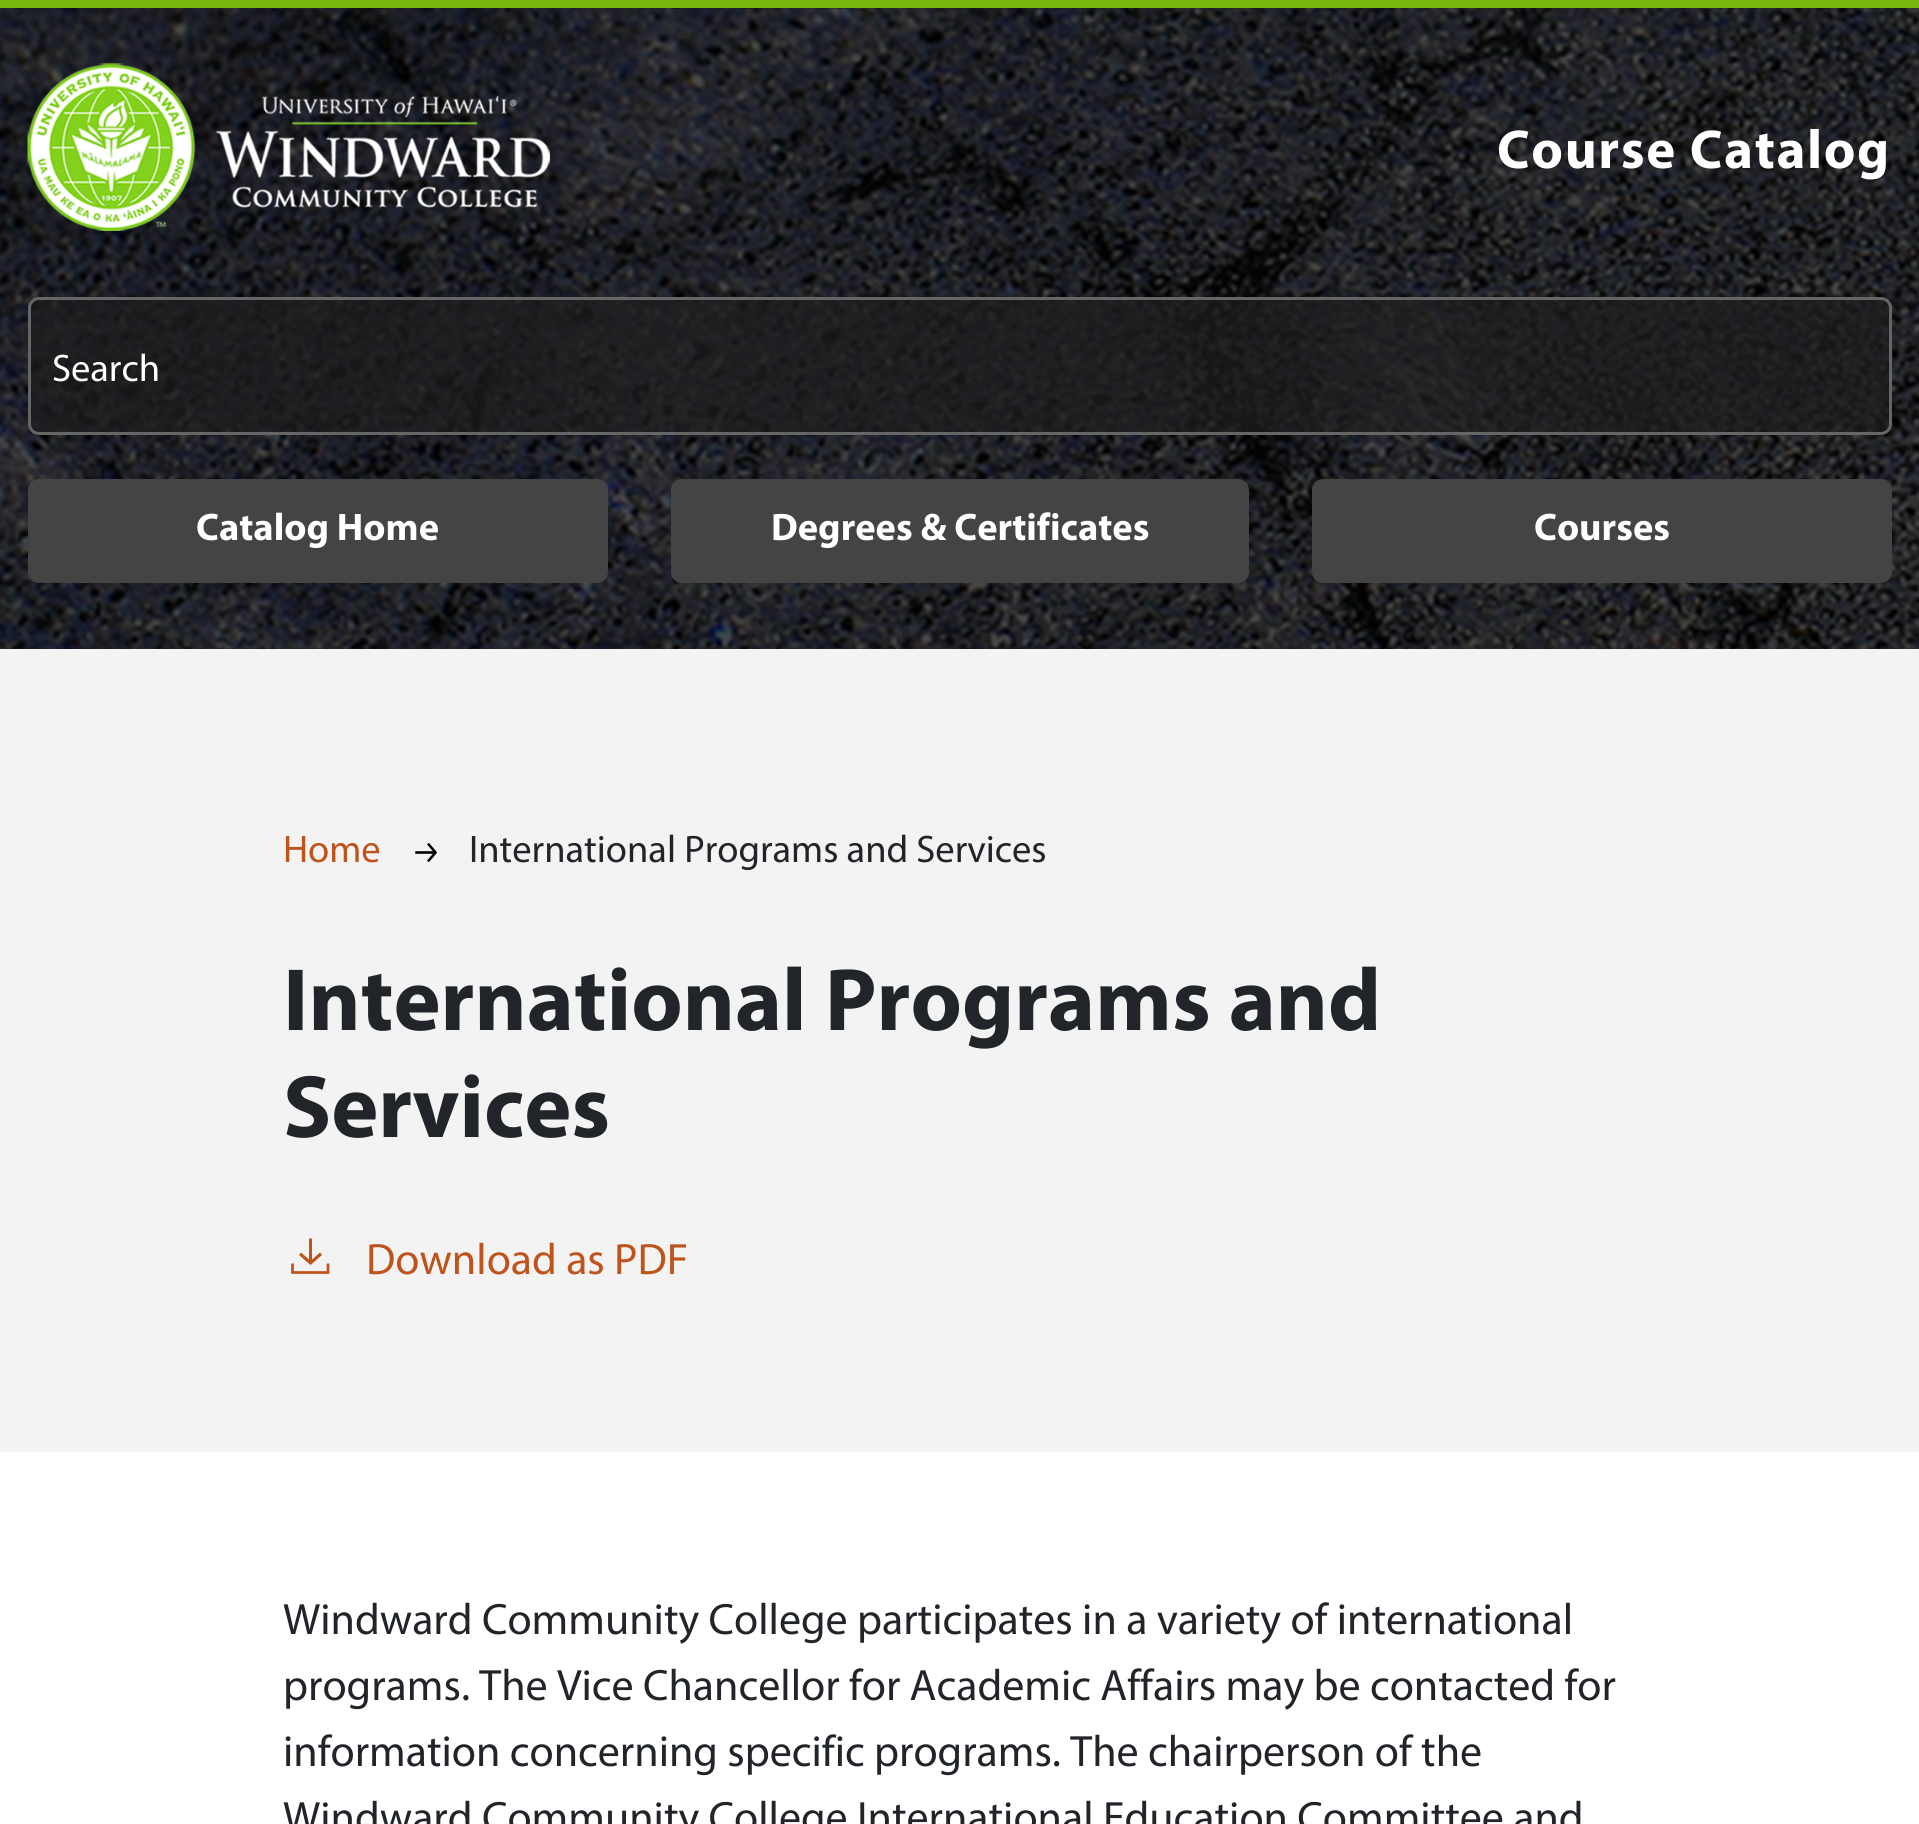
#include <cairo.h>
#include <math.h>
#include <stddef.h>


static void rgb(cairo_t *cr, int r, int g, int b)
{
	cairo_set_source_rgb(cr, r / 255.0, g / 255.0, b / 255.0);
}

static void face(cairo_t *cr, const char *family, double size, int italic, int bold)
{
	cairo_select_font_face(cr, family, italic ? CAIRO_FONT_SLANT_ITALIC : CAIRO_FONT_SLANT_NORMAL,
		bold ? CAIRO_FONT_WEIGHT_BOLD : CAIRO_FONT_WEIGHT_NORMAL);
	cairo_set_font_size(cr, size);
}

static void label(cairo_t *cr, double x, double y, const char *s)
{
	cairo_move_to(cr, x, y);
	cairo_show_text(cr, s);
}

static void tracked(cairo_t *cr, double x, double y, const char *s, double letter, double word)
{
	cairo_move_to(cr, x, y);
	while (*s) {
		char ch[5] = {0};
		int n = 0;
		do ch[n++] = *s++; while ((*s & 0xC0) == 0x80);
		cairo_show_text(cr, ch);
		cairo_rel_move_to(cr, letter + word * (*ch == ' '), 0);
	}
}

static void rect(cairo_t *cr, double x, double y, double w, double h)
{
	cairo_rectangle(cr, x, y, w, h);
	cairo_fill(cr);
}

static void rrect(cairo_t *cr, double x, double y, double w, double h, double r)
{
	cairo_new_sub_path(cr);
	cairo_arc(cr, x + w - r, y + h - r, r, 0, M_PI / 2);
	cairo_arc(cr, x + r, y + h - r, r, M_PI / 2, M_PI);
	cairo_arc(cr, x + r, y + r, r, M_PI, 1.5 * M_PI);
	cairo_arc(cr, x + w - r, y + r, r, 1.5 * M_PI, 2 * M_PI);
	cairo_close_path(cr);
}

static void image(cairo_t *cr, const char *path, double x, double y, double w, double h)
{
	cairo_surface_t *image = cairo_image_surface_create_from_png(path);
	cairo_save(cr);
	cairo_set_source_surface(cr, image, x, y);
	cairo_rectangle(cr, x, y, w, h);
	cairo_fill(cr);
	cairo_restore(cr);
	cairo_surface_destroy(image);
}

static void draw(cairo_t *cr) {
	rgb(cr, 255, 255, 255);
	cairo_paint(cr);
	image(cr, "image0.png", 0, 8, 1919, 641);
	rgb(cr, 121, 182, 13);
	rect(cr, 0, 0, 1919, 8);
	image(cr, "image1.png", 27, 63, 523, 168);
	face(cr, "Myriad", 55, 0, 1);
	rgb(cr, 255, 255, 255);
	tracked(cr, 1497, 168, "Course Catalog", 1.6, 0);
	cairo_set_source_rgba(cr, 0.118, 0.118, 0.118, 0.7);
	rrect(cr, 29.5, 298.5, 1861, 135, 9.5);
	cairo_fill_preserve(cr);
	rgb(cr, 102, 102, 102);
	cairo_set_line_width(cr, 3);
	cairo_stroke(cr);
	face(cr, "Myriad", 38.5, 0, 0);
	rgb(cr, 255, 255, 255);
	label(cr, 52, 381, "Search");
	rgb(cr, 68, 68, 68);
	rrect(cr, 28, 479, 580, 104, 11);
	cairo_fill(cr);
	face(cr, "Myriad", 38.5, 0, 1);
	rgb(cr, 255, 255, 255);
	label(cr, 196, 540, "Catalog Home");
	rgb(cr, 68, 68, 68);
	rrect(cr, 671, 479, 578, 104, 11);
	cairo_fill(cr);
	rgb(cr, 255, 255, 255);
	label(cr, 771, 540, "Degrees & Certificates");
	rgb(cr, 68, 68, 68);
	rrect(cr, 1312, 479, 580, 104, 11);
	cairo_fill(cr);
	rgb(cr, 255, 255, 255);
	label(cr, 1534, 540, "Courses");
	rgb(cr, 243, 243, 243);
	rect(cr, 0, 649, 1919, 803);
	face(cr, "Myriad", 38.5, 0, 0);
	rgb(cr, 190, 83, 28);
	label(cr, 283, 862, "Home");
	image(cr, "image2.png", 415, 842, 22, 21);
	rgb(cr, 33, 37, 41);
	label(cr, 469, 862, "International Programs and Services");
	face(cr, "Myriad", 89.25, 0, 1);
	label(cr, 283, 1030, "International Programs and");
	label(cr, 283, 1137, "Services");
	cairo_new_path(cr);
	cairo_move_to(cr, 292.5, 1263.5);
	cairo_line_to(cr, 292.5, 1272.5);
	cairo_line_to(cr, 328, 1272.5);
	cairo_line_to(cr, 328, 1263.5);
	rgb(cr, 190, 83, 28);
	cairo_set_line_width(cr, 2.7);
	cairo_stroke(cr);
	cairo_new_path(cr);
	cairo_move_to(cr, 310.5, 1265);
	cairo_line_to(cr, 322, 1255);
	cairo_line_to(cr, 320, 1252.5);
	cairo_line_to(cr, 312, 1259.5);
	cairo_line_to(cr, 312, 1238.5);
	cairo_line_to(cr, 309, 1238.5);
	cairo_line_to(cr, 309, 1259.5);
	cairo_line_to(cr, 301, 1252.5);
	cairo_line_to(cr, 299, 1255);
	cairo_close_path(cr);
	cairo_fill(cr);
	face(cr, "Myriad", 44, 0, 0);
	label(cr, 366, 1274, "Download as PDF");
	rgb(cr, 33, 37, 41);
	label(cr, 283, 1634, "Windward Community College participates in a variety of international");
	label(cr, 283, 1700, "programs. The Vice Chancellor for Academic Affairs may be contacted for");
	label(cr, 283, 1766, "information concerning specific programs. The chairperson of the");
	label(cr, 283, 1832, "Windward Community College International Education Committee and");
}

int main(void) {
	cairo_surface_t *surface = cairo_image_surface_create(CAIRO_FORMAT_RGB24, 1919, 1824);
	cairo_t *cr = cairo_create(surface);
	cairo_font_options_t *options = cairo_font_options_create();
	cairo_font_options_set_hint_metrics(options, CAIRO_HINT_METRICS_OFF);
	cairo_font_options_set_hint_style(options, CAIRO_HINT_STYLE_NONE);
	cairo_set_font_options(cr, options);
	cairo_set_miter_limit(cr, 4);
	draw(cr);
	cairo_surface_write_to_png(surface, "render.png");
	cairo_font_options_destroy(options);
	cairo_destroy(cr);
	cairo_surface_destroy(surface);
	return 0;
}
